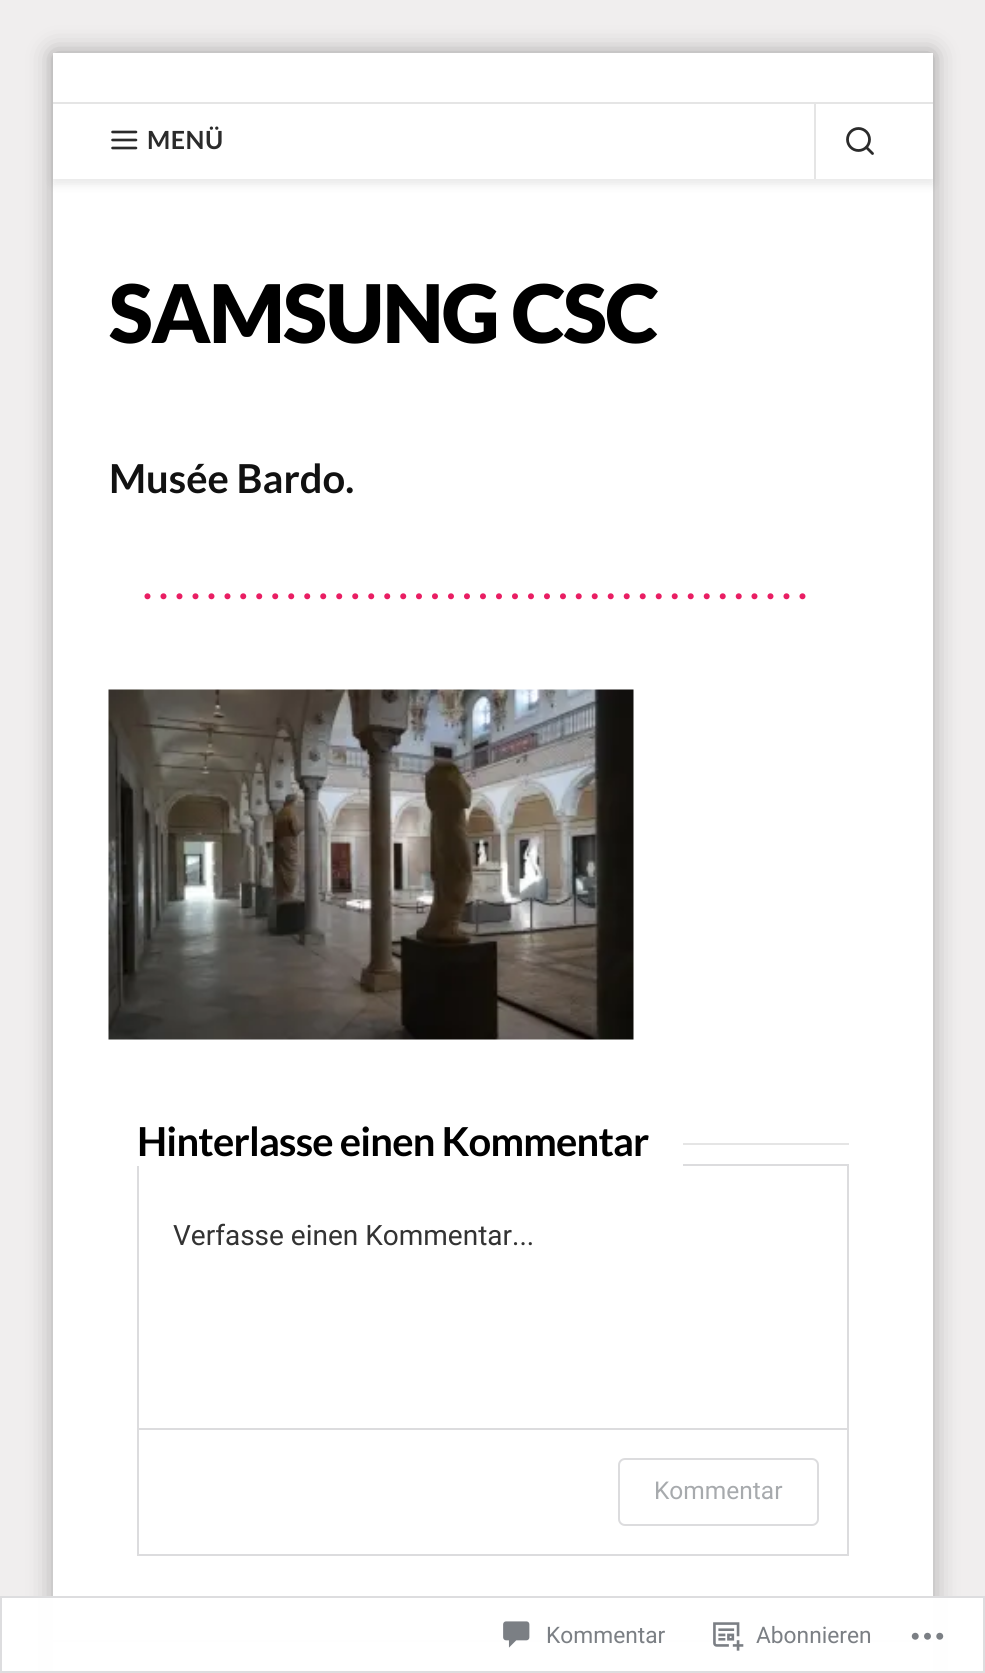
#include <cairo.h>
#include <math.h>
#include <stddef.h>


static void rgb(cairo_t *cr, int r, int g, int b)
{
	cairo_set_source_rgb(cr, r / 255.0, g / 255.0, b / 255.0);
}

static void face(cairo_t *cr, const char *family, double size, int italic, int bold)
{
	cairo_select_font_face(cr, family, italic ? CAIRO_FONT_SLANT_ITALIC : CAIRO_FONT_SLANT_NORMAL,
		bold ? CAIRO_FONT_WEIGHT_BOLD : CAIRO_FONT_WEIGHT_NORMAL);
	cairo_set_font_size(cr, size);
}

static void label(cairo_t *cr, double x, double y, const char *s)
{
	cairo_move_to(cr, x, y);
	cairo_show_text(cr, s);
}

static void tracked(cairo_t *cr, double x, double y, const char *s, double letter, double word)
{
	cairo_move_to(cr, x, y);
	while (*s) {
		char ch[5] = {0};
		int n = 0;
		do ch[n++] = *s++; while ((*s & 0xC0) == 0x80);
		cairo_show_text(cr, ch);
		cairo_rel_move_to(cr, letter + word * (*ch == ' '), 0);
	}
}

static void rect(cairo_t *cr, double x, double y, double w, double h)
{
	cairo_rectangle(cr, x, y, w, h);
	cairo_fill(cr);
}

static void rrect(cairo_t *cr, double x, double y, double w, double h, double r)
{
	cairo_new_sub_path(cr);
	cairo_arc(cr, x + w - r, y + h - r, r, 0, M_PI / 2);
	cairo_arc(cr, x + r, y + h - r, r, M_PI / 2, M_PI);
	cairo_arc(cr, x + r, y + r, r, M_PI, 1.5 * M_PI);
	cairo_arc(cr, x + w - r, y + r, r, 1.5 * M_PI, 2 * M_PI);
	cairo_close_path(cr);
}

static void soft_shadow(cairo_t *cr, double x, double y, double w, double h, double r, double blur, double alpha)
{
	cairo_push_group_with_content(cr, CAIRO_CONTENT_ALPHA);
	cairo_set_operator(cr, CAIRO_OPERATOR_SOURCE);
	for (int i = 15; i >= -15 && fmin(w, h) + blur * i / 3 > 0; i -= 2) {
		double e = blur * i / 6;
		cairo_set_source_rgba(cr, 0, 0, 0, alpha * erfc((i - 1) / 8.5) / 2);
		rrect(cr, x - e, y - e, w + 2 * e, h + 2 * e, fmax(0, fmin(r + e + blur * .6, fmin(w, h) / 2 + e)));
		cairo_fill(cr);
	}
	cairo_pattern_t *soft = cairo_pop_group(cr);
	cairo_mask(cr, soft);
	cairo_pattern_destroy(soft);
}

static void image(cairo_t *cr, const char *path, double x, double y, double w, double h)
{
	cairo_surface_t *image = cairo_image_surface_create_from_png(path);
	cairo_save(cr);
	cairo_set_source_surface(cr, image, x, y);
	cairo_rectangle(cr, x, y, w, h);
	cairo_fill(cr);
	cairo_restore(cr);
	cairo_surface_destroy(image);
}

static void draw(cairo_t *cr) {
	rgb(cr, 240, 238, 238);
	cairo_paint(cr);
	rgb(cr, 0, 0, 0);
	soft_shadow(cr, 53, 53, 880, 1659, 0, 13, 0.3);
	rgb(cr, 255, 255, 255);
	rect(cr, 53, 179, 880, 1492);
	rgb(cr, 0, 0, 0);
	soft_shadow(cr, 53, 54, 880, 126, 0, 6, 0.07);
	soft_shadow(cr, 53, 60, 880, 126, 0, 4.5, 0.05);
	rgb(cr, 255, 255, 255);
	rect(cr, 53, 53, 880, 126);
	rgb(cr, 229, 229, 229);
	rect(cr, 53, 102, 880, 2);
	cairo_new_path(cr);
	cairo_move_to(cr, 112.5, 140);
	cairo_line_to(cr, 136, 140);
	cairo_move_to(cr, 112.5, 132);
	cairo_line_to(cr, 136, 132);
	cairo_move_to(cr, 112.5, 148);
	cairo_line_to(cr, 136, 148);
	rgb(cr, 43, 43, 43);
	cairo_set_line_width(cr, 2.6);
	cairo_set_line_cap(cr, CAIRO_LINE_CAP_ROUND);
	cairo_set_line_join(cr, CAIRO_LINE_JOIN_ROUND);
	cairo_stroke(cr);
	face(cr, "Lato", 25, 0, 1);
	tracked(cr, 147, 149, "MENÜ", 0.5, 0);
	rgb(cr, 229, 229, 229);
	rect(cr, 814, 102, 2, 77);
	cairo_new_path(cr);
	cairo_arc(cr, 858.5, 139.5, 11, 0, 2 * M_PI);
	rgb(cr, 43, 43, 43);
	cairo_set_line_width(cr, 2.8);
	cairo_set_line_cap(cr, CAIRO_LINE_CAP_BUTT);
	cairo_set_line_join(cr, CAIRO_LINE_JOIN_MITER);
	cairo_stroke(cr);
	cairo_new_path(cr);
	cairo_move_to(cr, 872.5, 153.5);
	cairo_line_to(cr, 866.5, 147.5);
	cairo_set_line_cap(cr, CAIRO_LINE_CAP_ROUND);
	cairo_set_line_join(cr, CAIRO_LINE_JOIN_ROUND);
	cairo_stroke(cr);
	face(cr, "Lato Black", 80.75, 0, 0);
	rgb(cr, 0, 0, 0);
	tracked(cr, 109, 343, "SAMSUNG CSC", -1.6, 0);
	face(cr, "Lato", 39.9, 0, 1);
	rgb(cr, 17, 17, 17);
	label(cr, 109, 493, "Musée Bardo.");
	rgb(cr, 233, 30, 99);
	tracked(cr, 143, 599, "..........................................", 7, 0);
	image(cr, "image0.png", 108, 689, 526, 351);
	rgb(cr, 0, 0, 0);
	tracked(cr, 137, 1156, "Hinterlasse einen Kommentar", -0.8, 0);
	cairo_rectangle(cr, 138, 1165, 710, 390);
	rgb(cr, 220, 220, 222);
	cairo_set_line_width(cr, 2);
	cairo_set_line_cap(cr, CAIRO_LINE_CAP_BUTT);
	cairo_set_line_join(cr, CAIRO_LINE_JOIN_MITER);
	cairo_stroke(cr);
	rgb(cr, 255, 255, 255);
	rect(cr, 137, 1164, 546, 2);
	rgb(cr, 229, 229, 229);
	rect(cr, 683, 1143, 166, 2);
	face(cr, "Roboto", 28, 0, 0);
	rgb(cr, 51, 51, 51);
	label(cr, 173, 1245, "Verfasse einen Kommentar...");
	rgb(cr, 220, 220, 222);
	rect(cr, 138, 1428, 709, 2);
	rrect(cr, 619, 1459, 199, 66, 6);
	cairo_stroke(cr);
	face(cr, "Roboto", 24.5, 0, 0);
	rgb(cr, 167, 170, 173);
	label(cr, 654, 1499, "Kommentar");
	rgb(cr, 229, 229, 229);
	rect(cr, 53, 1640, 880, 2);
	cairo_set_source_rgba(cr, 1, 1, 1, 0.98);
	cairo_rectangle(cr, 1, 1597, 983, 75);
	cairo_fill_preserve(cr);
	rgb(cr, 221, 221, 223);
	cairo_stroke(cr);
	image(cr, "image1.png", 503, 1621, 27, 27);
	face(cr, "Roboto", 22.75, 0, 0);
	rgb(cr, 123, 127, 132);
	label(cr, 546, 1643, "Kommentar");
	image(cr, "image2.png", 713, 1622, 31, 29);
	label(cr, 756, 1643, "Abonnieren");
	image(cr, "image3.png", 911, 1632, 33, 8);
}

int main(void) {
	cairo_surface_t *surface = cairo_image_surface_create(CAIRO_FORMAT_RGB24, 985, 1673);
	cairo_t *cr = cairo_create(surface);
	cairo_font_options_t *options = cairo_font_options_create();
	cairo_font_options_set_hint_metrics(options, CAIRO_HINT_METRICS_OFF);
	cairo_font_options_set_hint_style(options, CAIRO_HINT_STYLE_NONE);
	cairo_set_font_options(cr, options);
	cairo_set_miter_limit(cr, 4);
	draw(cr);
	cairo_surface_write_to_png(surface, "render.png");
	cairo_font_options_destroy(options);
	cairo_destroy(cr);
	cairo_surface_destroy(surface);
	return 0;
}
